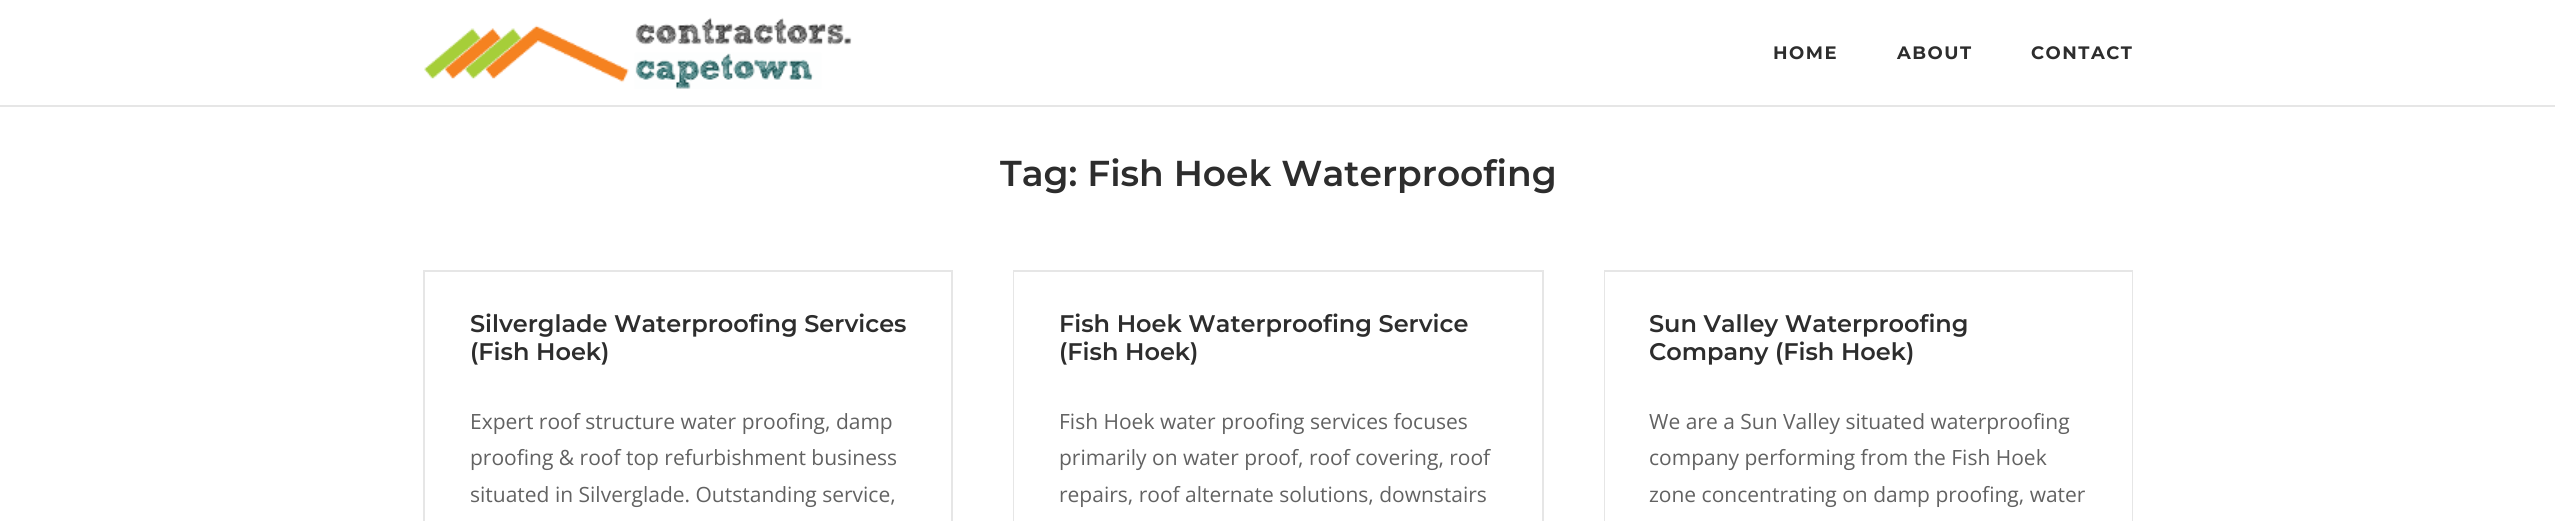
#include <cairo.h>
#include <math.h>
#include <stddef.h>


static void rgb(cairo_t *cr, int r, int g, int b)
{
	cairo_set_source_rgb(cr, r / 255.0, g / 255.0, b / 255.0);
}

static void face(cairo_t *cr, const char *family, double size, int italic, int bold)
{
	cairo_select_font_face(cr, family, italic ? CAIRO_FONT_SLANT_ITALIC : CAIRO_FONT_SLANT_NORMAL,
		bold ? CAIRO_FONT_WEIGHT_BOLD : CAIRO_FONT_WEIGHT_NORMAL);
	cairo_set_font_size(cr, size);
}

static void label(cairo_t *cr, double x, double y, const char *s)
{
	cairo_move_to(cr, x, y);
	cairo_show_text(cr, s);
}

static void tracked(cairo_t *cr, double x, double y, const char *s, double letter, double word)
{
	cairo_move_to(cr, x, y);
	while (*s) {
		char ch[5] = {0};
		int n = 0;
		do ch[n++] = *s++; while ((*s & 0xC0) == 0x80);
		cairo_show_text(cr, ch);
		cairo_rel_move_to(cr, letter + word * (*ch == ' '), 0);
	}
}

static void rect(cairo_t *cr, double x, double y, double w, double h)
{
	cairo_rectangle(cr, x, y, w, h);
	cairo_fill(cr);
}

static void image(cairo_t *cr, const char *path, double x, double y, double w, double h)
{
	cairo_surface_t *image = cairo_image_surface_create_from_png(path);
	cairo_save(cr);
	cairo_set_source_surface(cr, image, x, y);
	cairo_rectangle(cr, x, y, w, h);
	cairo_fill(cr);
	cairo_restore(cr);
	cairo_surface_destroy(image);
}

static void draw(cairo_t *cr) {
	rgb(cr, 255, 255, 255);
	cairo_paint(cr);
	rgb(cr, 230, 230, 230);
	rect(cr, 0, 105, 2555, 2);
	image(cr, "image0.png", 424, 17, 428, 72);
	face(cr, "Montserrat", 18, 0, 1);
	rgb(cr, 45, 45, 45);
	tracked(cr, 1773, 59, "HOME", 1.5, 0);
	tracked(cr, 1897, 59, "ABOUT", 1.5, 0);
	tracked(cr, 2031, 59, "CONTACT", 1.5, 0);
	face(cr, "Montserrat SemiBold", 36, 0, 0);
	label(cr, 1000, 186, "Tag: Fish Hoek Waterproofing");
	cairo_rectangle(cr, 424, 271, 528, 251);
	rgb(cr, 230, 230, 230);
	cairo_stroke(cr);
	face(cr, "Montserrat SemiBold", 24, 0, 0);
	rgb(cr, 45, 45, 45);
	label(cr, 470, 332, "Silverglade Waterproofing Services");
	label(cr, 470, 360, "(Fish Hoek)");
	face(cr, "Open Sans", 21, 0, 0);
	rgb(cr, 98, 98, 98);
	label(cr, 470, 429, "Expert roof structure water proofing, damp");
	label(cr, 470, 465, "proofing & roof top refurbishment business");
	label(cr, 470, 502, "situated in Silverglade. Outstanding service,");
	cairo_rectangle(cr, 1014, 271, 529, 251);
	rgb(cr, 230, 230, 230);
	cairo_stroke(cr);
	rgb(cr, 255, 255, 255);
	rect(cr, 1014, 272, 1, 249);
	face(cr, "Montserrat SemiBold", 24, 0, 0);
	rgb(cr, 45, 45, 45);
	label(cr, 1059, 332, "Fish Hoek Waterproofing Service");
	label(cr, 1059, 360, "(Fish Hoek)");
	face(cr, "Open Sans", 21, 0, 0);
	rgb(cr, 98, 98, 98);
	label(cr, 1059, 429, "Fish Hoek water proofing services focuses");
	label(cr, 1059, 465, "primarily on water proof, roof covering, roof");
	label(cr, 1059, 502, "repairs, roof alternate solutions, downstairs");
	cairo_rectangle(cr, 1605, 271, 527, 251);
	rgb(cr, 230, 230, 230);
	cairo_stroke(cr);
	rgb(cr, 255, 255, 255);
	rect(cr, 1605, 272, 527, 249);
	face(cr, "Montserrat SemiBold", 24, 0, 0);
	rgb(cr, 45, 45, 45);
	label(cr, 1649, 332, "Sun Valley Waterproofing");
	label(cr, 1649, 360, "Company (Fish Hoek)");
	face(cr, "Open Sans", 21, 0, 0);
	rgb(cr, 98, 98, 98);
	label(cr, 1649, 429, "We are a Sun Valley situated waterproofing");
	label(cr, 1649, 465, "company performing from the Fish Hoek");
	label(cr, 1649, 502, "zone concentrating on damp proofing, water");
}

int main(void) {
	cairo_surface_t *surface = cairo_image_surface_create(CAIRO_FORMAT_RGB24, 2555, 521);
	cairo_t *cr = cairo_create(surface);
	cairo_font_options_t *options = cairo_font_options_create();
	cairo_font_options_set_hint_metrics(options, CAIRO_HINT_METRICS_OFF);
	cairo_font_options_set_hint_style(options, CAIRO_HINT_STYLE_NONE);
	cairo_set_font_options(cr, options);
	cairo_set_miter_limit(cr, 4);
	draw(cr);
	cairo_surface_write_to_png(surface, "render.png");
	cairo_font_options_destroy(options);
	cairo_destroy(cr);
	cairo_surface_destroy(surface);
	return 0;
}
